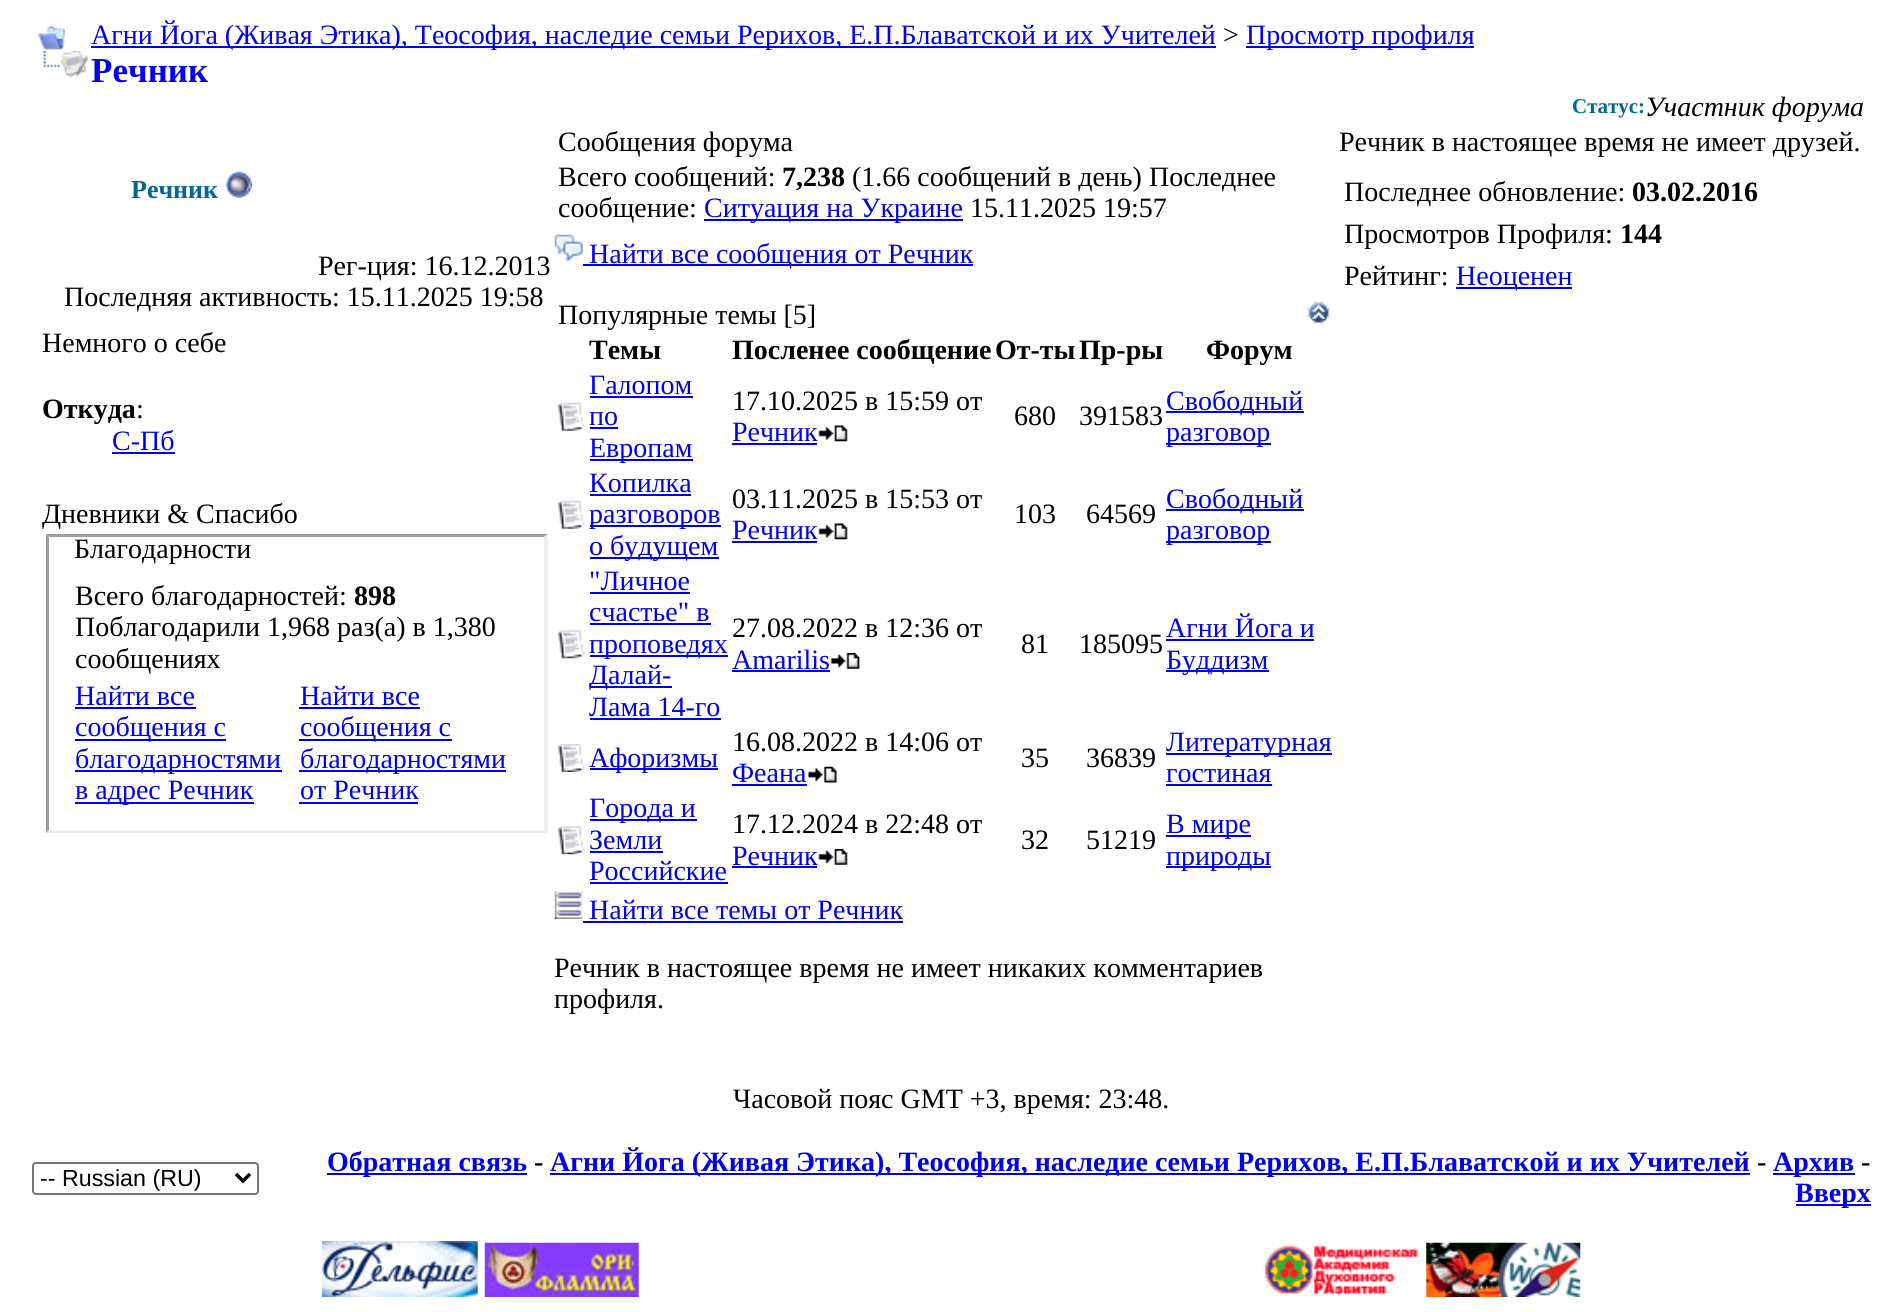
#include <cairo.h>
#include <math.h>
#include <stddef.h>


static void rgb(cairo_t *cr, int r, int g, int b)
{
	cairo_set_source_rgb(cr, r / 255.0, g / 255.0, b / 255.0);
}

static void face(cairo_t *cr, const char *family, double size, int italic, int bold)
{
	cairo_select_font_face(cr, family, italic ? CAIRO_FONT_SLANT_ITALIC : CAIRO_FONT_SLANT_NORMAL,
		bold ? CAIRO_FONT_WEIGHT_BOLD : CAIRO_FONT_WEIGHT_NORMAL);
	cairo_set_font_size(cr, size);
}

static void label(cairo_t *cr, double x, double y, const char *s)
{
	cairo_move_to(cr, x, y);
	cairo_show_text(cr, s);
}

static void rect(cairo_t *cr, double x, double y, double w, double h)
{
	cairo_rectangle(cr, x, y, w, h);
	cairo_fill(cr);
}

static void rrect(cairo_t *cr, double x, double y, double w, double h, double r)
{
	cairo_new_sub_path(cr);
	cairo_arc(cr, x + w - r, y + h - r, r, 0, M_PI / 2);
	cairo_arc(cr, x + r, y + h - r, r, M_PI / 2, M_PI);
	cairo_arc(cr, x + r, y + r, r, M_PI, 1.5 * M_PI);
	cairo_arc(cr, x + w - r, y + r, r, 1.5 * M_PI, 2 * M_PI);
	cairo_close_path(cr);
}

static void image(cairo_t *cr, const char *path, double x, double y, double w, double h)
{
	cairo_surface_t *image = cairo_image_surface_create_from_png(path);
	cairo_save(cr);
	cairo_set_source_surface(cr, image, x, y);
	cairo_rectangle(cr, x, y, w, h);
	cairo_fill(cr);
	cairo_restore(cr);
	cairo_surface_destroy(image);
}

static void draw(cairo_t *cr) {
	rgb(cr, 255, 255, 255);
	cairo_paint(cr);
	image(cr, "image0.png", 38, 26, 27, 24);
	rgb(cr, 0, 0, 238);
	rect(cr, 91, 46, 1125, 2);
	face(cr, "Liberation Serif", 28, 0, 0);
	label(cr, 91, 44, "Агни Йога (Живая Этика), Теософия, наследие семьи Рерихов, Е.П.Блаватской и их Учителей");
	rgb(cr, 0, 0, 0);
	label(cr, 1223, 44, ">");
	rgb(cr, 0, 0, 238);
	rect(cr, 1246, 46, 228, 2);
	label(cr, 1246, 44, "Просмотр профиля");
	image(cr, "image1.png", 43, 51, 45, 27);
	face(cr, "Liberation Serif", 35, 0, 1);
	label(cr, 91, 82, "Речник");
	face(cr, "Liberation Serif", 21, 0, 1);
	rgb(cr, 0, 102, 153);
	label(cr, 1572, 113, "Статус:");
	face(cr, "Liberation Serif", 28, 1, 0);
	rgb(cr, 0, 0, 0);
	label(cr, 1645, 116, "Участник форума");
	face(cr, "Liberation Serif", 26, 0, 1);
	rgb(cr, 0, 102, 153);
	label(cr, 131, 198, "Речник");
	image(cr, "image2.png", 225, 171, 27, 27);
	face(cr, "Liberation Serif", 28, 0, 0);
	rgb(cr, 0, 0, 0);
	label(cr, 318, 275, "Рег-ция: 16.12.2013");
	label(cr, 64, 306, "Последняя активность: 15.11.2025 19:58");
	label(cr, 42, 352, "Немного о себе");
	face(cr, "Liberation Serif", 28, 0, 1);
	label(cr, 42, 418, "Откуда");
	face(cr, "Liberation Serif", 28, 0, 0);
	label(cr, 136, 418, ":");
	rgb(cr, 0, 0, 238);
	label(cr, 112, 450, "С-Пб");
	rect(cr, 112, 452, 63, 2);
	rgb(cr, 0, 0, 0);
	label(cr, 42, 523, "Дневники & Спасибо");
	rgb(cr, 159, 159, 159);
	cairo_new_path(cr);
	cairo_move_to(cr, 46, 534);
	cairo_line_to(cr, 548, 534);
	cairo_line_to(cr, 544, 537);
	cairo_line_to(cr, 49, 537);
	cairo_close_path(cr);
	cairo_fill(cr);
	rgb(cr, 239, 239, 239);
	cairo_new_path(cr);
	cairo_move_to(cr, 548, 534);
	cairo_line_to(cr, 548, 833);
	cairo_line_to(cr, 544, 830);
	cairo_line_to(cr, 544, 537);
	cairo_close_path(cr);
	cairo_fill(cr);
	cairo_new_path(cr);
	cairo_move_to(cr, 548, 833);
	cairo_line_to(cr, 46, 833);
	cairo_line_to(cr, 49, 830);
	cairo_line_to(cr, 544, 830);
	cairo_close_path(cr);
	cairo_fill(cr);
	rgb(cr, 159, 159, 159);
	cairo_new_path(cr);
	cairo_move_to(cr, 46, 833);
	cairo_line_to(cr, 46, 534);
	cairo_line_to(cr, 49, 537);
	cairo_line_to(cr, 49, 830);
	cairo_close_path(cr);
	cairo_fill(cr);
	rgb(cr, 0, 0, 0);
	label(cr, 74, 558, "Благодарности");
	label(cr, 75, 605, "Всего благодарностей:");
	face(cr, "Liberation Serif", 28, 0, 1);
	label(cr, 354, 605, "898");
	face(cr, "Liberation Serif", 28, 0, 0);
	label(cr, 75, 636, "Поблагодарили 1,968 раз(а) в 1,380");
	label(cr, 75, 668, "сообщениях");
	rgb(cr, 0, 0, 238);
	label(cr, 75, 705, "Найти все");
	rect(cr, 75, 707, 121, 2);
	rect(cr, 75, 739, 151, 2);
	label(cr, 75, 736, "сообщения с");
	rect(cr, 75, 770, 207, 2);
	label(cr, 75, 768, "благодарностями");
	rect(cr, 75, 802, 179, 2);
	label(cr, 75, 799, "в адрес Речник");
	label(cr, 300, 705, "Найти все");
	rect(cr, 299, 707, 121, 2);
	rect(cr, 299, 739, 153, 2);
	label(cr, 300, 736, "сообщения с");
	rect(cr, 299, 770, 207, 2);
	label(cr, 300, 768, "благодарностями");
	label(cr, 300, 799, "от Речник");
	rect(cr, 299, 802, 119, 2);
	rgb(cr, 0, 0, 0);
	label(cr, 558, 151, "Сообщения форума");
	label(cr, 558, 186, "Всего сообщений:");
	face(cr, "Liberation Serif", 28, 0, 1);
	label(cr, 782, 186, "7,238");
	face(cr, "Liberation Serif", 28, 0, 0);
	label(cr, 852, 186, "(1.66 сообщений в день) Последнее");
	label(cr, 558, 217, "сообщение:");
	rgb(cr, 0, 0, 238);
	rect(cr, 704, 219, 259, 2);
	label(cr, 704, 217, "Ситуация на Украине");
	rgb(cr, 0, 0, 0);
	label(cr, 970, 217, "15.11.2025 19:57");
	image(cr, "image3.png", 554, 234, 29, 28);
	rgb(cr, 0, 0, 238);
	rect(cr, 583, 264, 390, 2);
	label(cr, 589, 263, "Найти все сообщения от Речник");
	rgb(cr, 0, 0, 0);
	label(cr, 558, 324, "Популярные темы [5]");
	image(cr, "image4.png", 1307, 301, 24, 24);
	face(cr, "Liberation Serif", 28, 0, 1);
	label(cr, 589, 359, "Темы");
	label(cr, 732, 359, "Посленее сообщение");
	label(cr, 995, 359, "От-ты");
	label(cr, 1079, 359, "Пр-ры");
	label(cr, 1206, 359, "Форум");
	image(cr, "image5.png", 558, 402, 27, 29);
	face(cr, "Liberation Serif", 28, 0, 0);
	rgb(cr, 0, 0, 238);
	label(cr, 589, 394, "Галопом");
	rect(cr, 590, 396, 103, 2);
	label(cr, 589, 425, "по");
	rect(cr, 590, 427, 28, 2);
	rect(cr, 590, 459, 103, 2);
	label(cr, 589, 457, "Европам");
	rgb(cr, 0, 0, 0);
	label(cr, 732, 410, "17.10.2025 в 15:59 от");
	rgb(cr, 0, 0, 238);
	label(cr, 732, 441, "Речник");
	rect(cr, 732, 443, 85, 2);
	image(cr, "image6.png", 818, 425, 30, 17);
	rgb(cr, 0, 0, 0);
	label(cr, 1014, 425, "680");
	label(cr, 1079, 425, "391583");
	rgb(cr, 0, 0, 238);
	rect(cr, 1166, 411, 138, 2);
	label(cr, 1166, 410, "Свободный");
	rect(cr, 1166, 443, 105, 2);
	label(cr, 1166, 441, "разговор");
	image(cr, "image5.png", 558, 500, 27, 29);
	label(cr, 589, 492, "Копилка");
	rect(cr, 590, 494, 101, 2);
	rect(cr, 590, 525, 131, 2);
	label(cr, 589, 523, "разговоров");
	rect(cr, 590, 557, 129, 2);
	label(cr, 589, 555, "о будущем");
	rgb(cr, 0, 0, 0);
	label(cr, 732, 508, "03.11.2025 в 15:53 от");
	rgb(cr, 0, 0, 238);
	label(cr, 732, 539, "Речник");
	rect(cr, 732, 541, 85, 2);
	image(cr, "image6.png", 818, 523, 30, 17);
	rgb(cr, 0, 0, 0);
	label(cr, 1014, 523, "103");
	label(cr, 1086, 523, "64569");
	rgb(cr, 0, 0, 238);
	rect(cr, 1166, 509, 138, 2);
	label(cr, 1166, 508, "Свободный");
	rect(cr, 1166, 541, 105, 2);
	label(cr, 1166, 539, "разговор");
	image(cr, "image7.png", 558, 630, 27, 29);
	label(cr, 589, 590, "\"Личное");
	rect(cr, 590, 592, 100, 2);
	label(cr, 589, 621, "счастье\" в");
	rect(cr, 590, 623, 121, 2);
	rect(cr, 590, 655, 138, 2);
	label(cr, 589, 653, "проповедях");
	rect(cr, 590, 686, 82, 2);
	label(cr, 589, 684, "Далай-");
	label(cr, 589, 716, "Лама 14-го");
	rect(cr, 590, 718, 131, 2);
	rgb(cr, 0, 0, 0);
	label(cr, 732, 637, "27.08.2022 в 12:36 от");
	rgb(cr, 0, 0, 238);
	label(cr, 732, 669, "Amarilis");
	rect(cr, 732, 670, 98, 2);
	image(cr, "image8.png", 830, 653, 30, 16);
	rgb(cr, 0, 0, 0);
	label(cr, 1021, 653, "81");
	label(cr, 1079, 653, "185095");
	rgb(cr, 0, 0, 238);
	label(cr, 1166, 637, "Агни Йога и");
	rect(cr, 1166, 639, 148, 2);
	rect(cr, 1166, 670, 103, 2);
	label(cr, 1166, 669, "Буддизм");
	image(cr, "image9.png", 558, 744, 27, 28);
	rect(cr, 590, 768, 128, 2);
	label(cr, 589, 767, "Афоризмы");
	rgb(cr, 0, 0, 0);
	label(cr, 732, 751, "16.08.2022 в 14:06 от");
	rgb(cr, 0, 0, 238);
	label(cr, 732, 782, "Феана");
	rect(cr, 732, 784, 75, 2);
	image(cr, "image10.png", 808, 766, 29, 17);
	rgb(cr, 0, 0, 0);
	label(cr, 1021, 767, "35");
	label(cr, 1086, 767, "36839");
	rgb(cr, 0, 0, 238);
	rect(cr, 1166, 753, 166, 2);
	label(cr, 1166, 751, "Литературная");
	label(cr, 1166, 782, "гостиная");
	rect(cr, 1166, 784, 106, 2);
	image(cr, "image7.png", 558, 826, 27, 29);
	rect(cr, 590, 819, 107, 2);
	label(cr, 589, 817, "Города и");
	label(cr, 589, 849, "Земли");
	rect(cr, 590, 851, 73, 2);
	label(cr, 589, 880, "Российские");
	rect(cr, 590, 882, 138, 2);
	rgb(cr, 0, 0, 0);
	label(cr, 732, 833, "17.12.2024 в 22:48 от");
	rgb(cr, 0, 0, 238);
	label(cr, 732, 865, "Речник");
	rect(cr, 732, 866, 85, 2);
	image(cr, "image11.png", 818, 849, 30, 16);
	rgb(cr, 0, 0, 0);
	label(cr, 1021, 849, "32");
	label(cr, 1086, 849, "51219");
	rgb(cr, 0, 0, 238);
	rect(cr, 1166, 835, 85, 2);
	label(cr, 1166, 833, "В мире");
	rect(cr, 1166, 866, 105, 2);
	label(cr, 1166, 865, "природы");
	image(cr, "image12.png", 554, 891, 29, 28);
	label(cr, 589, 919, "Найти все темы от Речник");
	rect(cr, 583, 921, 320, 2);
	rgb(cr, 0, 0, 0);
	label(cr, 554, 977, "Речник в настоящее время не имеет никаких комментариев");
	label(cr, 554, 1008, "профиля.");
	label(cr, 1339, 151, "Речник в настоящее время не имеет друзей.");
	label(cr, 1344, 201, "Последнее обновление:");
	face(cr, "Liberation Serif", 28, 0, 1);
	label(cr, 1632, 201, "03.02.2016");
	face(cr, "Liberation Serif", 28, 0, 0);
	label(cr, 1344, 243, "Просмотров Профиля:");
	face(cr, "Liberation Serif", 28, 0, 1);
	label(cr, 1620, 243, "144");
	face(cr, "Liberation Serif", 28, 0, 0);
	label(cr, 1344, 285, "Рейтинг:");
	rgb(cr, 0, 0, 238);
	rect(cr, 1456, 287, 116, 2);
	label(cr, 1456, 285, "Неоценен");
	rgb(cr, 0, 0, 0);
	label(cr, 733, 1108, "Часовой пояс GMT +3, время: 23:48.");
	rrect(cr, 33, 1163, 225, 31, 3);
	rgb(cr, 118, 118, 118);
	cairo_stroke(cr);
	cairo_new_path(cr);
	cairo_move_to(cr, 236, 1174);
	cairo_line_to(cr, 243, 1181);
	cairo_line_to(cr, 250, 1174);
	rgb(cr, 0, 0, 0);
	cairo_set_line_width(cr, 3.5);
	cairo_stroke(cr);
	face(cr, "Liberation Sans", 23.25, 0, 0);
	label(cr, 40, 1186, "-- Russian (RU)");
	rgb(cr, 0, 0, 238);
	rect(cr, 327, 1173, 200, 2);
	face(cr, "Liberation Serif", 28, 0, 1);
	label(cr, 327, 1171, "Обратная связь");
	rgb(cr, 0, 0, 0);
	label(cr, 534, 1171, "-");
	rgb(cr, 0, 0, 238);
	rect(cr, 550, 1173, 1200, 2);
	label(cr, 550, 1171, "Агни Йога (Живая Этика), Теософия, наследие семьи Рерихов, Е.П.Блаватской и их Учителей");
	rgb(cr, 0, 0, 0);
	label(cr, 1757, 1171, "-");
	rgb(cr, 0, 0, 238);
	rect(cr, 1773, 1173, 82, 2);
	label(cr, 1773, 1171, "Архив");
	rgb(cr, 0, 0, 0);
	label(cr, 1861, 1171, "-");
	rgb(cr, 0, 0, 238);
	rect(cr, 1796, 1204, 75, 2);
	label(cr, 1795, 1202, "Вверх");
	image(cr, "image13.png", 322, 1241, 156, 56);
	image(cr, "image14.png", 484, 1242, 155, 55);
	image(cr, "image15.png", 1265, 1245, 153, 51);
	image(cr, "image16.png", 1426, 1242, 155, 55);
}

int main(void) {
	cairo_surface_t *surface = cairo_image_surface_create(CAIRO_FORMAT_RGB24, 1902, 1312);
	cairo_t *cr = cairo_create(surface);
	cairo_font_options_t *options = cairo_font_options_create();
	cairo_font_options_set_hint_metrics(options, CAIRO_HINT_METRICS_OFF);
	cairo_font_options_set_hint_style(options, CAIRO_HINT_STYLE_NONE);
	cairo_set_font_options(cr, options);
	cairo_set_miter_limit(cr, 4);
	draw(cr);
	cairo_surface_write_to_png(surface, "render.png");
	cairo_font_options_destroy(options);
	cairo_destroy(cr);
	cairo_surface_destroy(surface);
	return 0;
}
